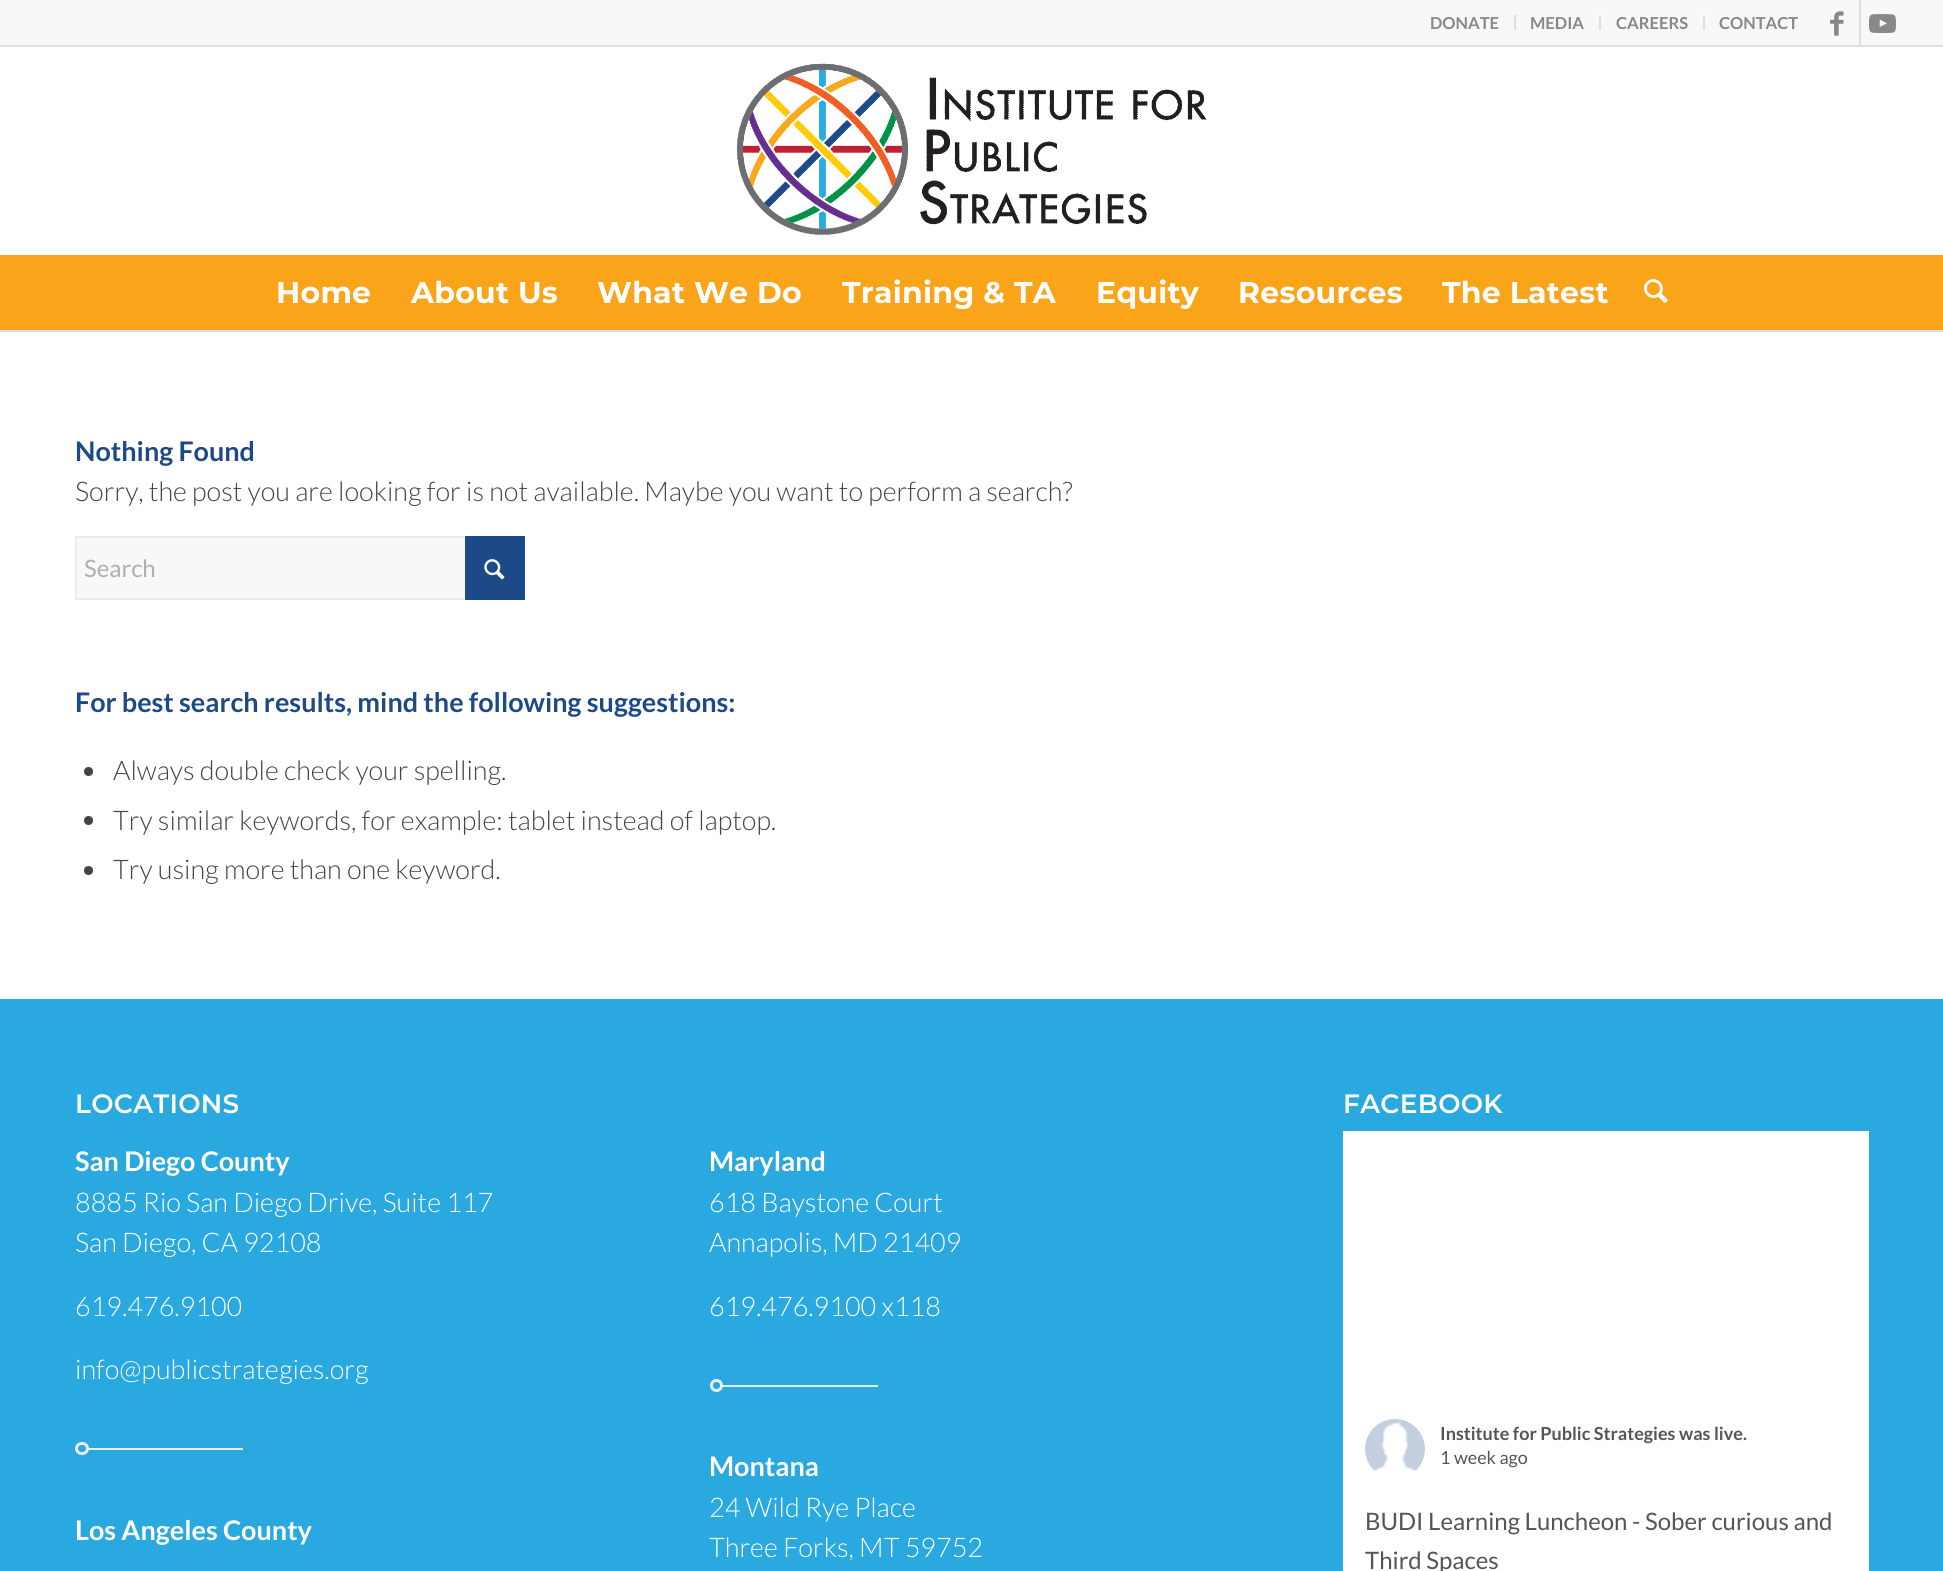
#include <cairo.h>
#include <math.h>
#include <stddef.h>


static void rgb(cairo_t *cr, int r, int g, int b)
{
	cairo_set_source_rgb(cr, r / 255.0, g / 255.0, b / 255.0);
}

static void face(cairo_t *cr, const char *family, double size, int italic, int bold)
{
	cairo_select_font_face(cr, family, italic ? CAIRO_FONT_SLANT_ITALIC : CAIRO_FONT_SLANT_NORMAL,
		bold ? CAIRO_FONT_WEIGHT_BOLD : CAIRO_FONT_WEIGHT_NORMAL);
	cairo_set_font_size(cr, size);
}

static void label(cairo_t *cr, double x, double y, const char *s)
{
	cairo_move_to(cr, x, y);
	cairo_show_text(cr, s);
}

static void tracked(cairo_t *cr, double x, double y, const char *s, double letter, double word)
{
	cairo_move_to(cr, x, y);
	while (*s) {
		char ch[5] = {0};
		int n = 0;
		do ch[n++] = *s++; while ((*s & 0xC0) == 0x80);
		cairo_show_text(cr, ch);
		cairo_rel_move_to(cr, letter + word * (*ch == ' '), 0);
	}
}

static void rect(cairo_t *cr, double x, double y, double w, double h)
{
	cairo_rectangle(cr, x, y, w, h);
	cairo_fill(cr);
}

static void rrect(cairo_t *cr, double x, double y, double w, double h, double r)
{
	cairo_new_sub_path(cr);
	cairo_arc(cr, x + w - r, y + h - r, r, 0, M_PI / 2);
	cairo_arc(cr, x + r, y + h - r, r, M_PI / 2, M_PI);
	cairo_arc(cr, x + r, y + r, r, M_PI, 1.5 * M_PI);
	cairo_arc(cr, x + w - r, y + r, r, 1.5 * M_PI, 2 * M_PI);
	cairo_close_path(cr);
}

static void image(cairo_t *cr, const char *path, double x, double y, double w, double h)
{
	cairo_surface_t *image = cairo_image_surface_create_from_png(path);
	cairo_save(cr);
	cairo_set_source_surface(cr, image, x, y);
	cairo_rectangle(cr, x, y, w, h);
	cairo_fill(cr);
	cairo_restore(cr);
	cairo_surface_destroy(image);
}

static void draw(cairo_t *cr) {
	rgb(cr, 255, 255, 255);
	cairo_paint(cr);
	rgb(cr, 248, 248, 248);
	rect(cr, 0, 0, 1943, 45);
	rgb(cr, 222, 222, 222);
	rect(cr, 0, 45, 1943, 2);
	rect(cr, 1514, 15, 2, 15);
	face(cr, "Lato", 16.5, 0, 1);
	rgb(cr, 136, 136, 136);
	label(cr, 1430, 29, "DONATE");
	rgb(cr, 222, 222, 222);
	rect(cr, 1599, 15, 2, 15);
	rgb(cr, 136, 136, 136);
	label(cr, 1530, 29, "MEDIA");
	rgb(cr, 222, 222, 222);
	rect(cr, 1703, 15, 2, 15);
	rgb(cr, 136, 136, 136);
	label(cr, 1616, 29, "CAREERS");
	label(cr, 1719, 29, "CONTACT");
	rgb(cr, 222, 222, 222);
	rect(cr, 1859, 0, 2, 45);
	image(cr, "image0.png", 1830, 11, 14, 25);
	image(cr, "image1.png", 1869, 14, 27, 20);
	rect(cr, 0, 330, 1943, 2);
	image(cr, "image2.png", 737, 63, 470, 173);
	rgb(cr, 250, 164, 25);
	rect(cr, 0, 255, 1943, 75);
	face(cr, "Montserrat", 30, 0, 1);
	rgb(cr, 255, 255, 255);
	tracked(cr, 276, 303, "Home", 0.25, 0);
	tracked(cr, 411, 303, "About Us", 0.25, 0);
	tracked(cr, 597, 303, "What We Do", 0.25, 0);
	tracked(cr, 842, 303, "Training & TA", 0.25, 0);
	tracked(cr, 1096, 303, "Equity", 0.25, 0);
	tracked(cr, 1238, 303, "Resources", 0.25, 0);
	tracked(cr, 1442, 303, "The Latest", 0.25, 0);
	image(cr, "image3.png", 1644, 279, 24, 24);
	face(cr, "Lato", 27, 0, 1);
	rgb(cr, 29, 73, 136);
	label(cr, 75, 461, "Nothing Found");
	face(cr, "Lato Light", 27, 0, 0);
	rgb(cr, 68, 68, 68);
	label(cr, 75, 501, "Sorry, the post you are looking for is not available. Maybe you want to perform a search?");
	rgb(cr, 248, 248, 248);
	rect(cr, 77, 538, 388, 60);
	cairo_rectangle(cr, 76, 537, 448, 62);
	rgb(cr, 235, 235, 235);
	cairo_stroke(cr);
	face(cr, "Lato", 24, 0, 0);
	rgb(cr, 175, 175, 175);
	label(cr, 84, 577, "Search");
	rgb(cr, 29, 73, 136);
	rect(cr, 465, 536, 60, 64);
	image(cr, "image4.png", 484, 559, 21, 21);
	face(cr, "Lato", 27, 0, 1);
	label(cr, 75, 712, "For best search results, mind the following suggestions:");
	rgb(cr, 68, 68, 68);
	cairo_new_path(cr);
	cairo_arc(cr, 88.5, 771.5, 4.5, 0, 2 * M_PI);
	cairo_fill(cr);
	face(cr, "Lato Light", 27, 0, 0);
	label(cr, 113, 780, "Always double check your spelling.");
	cairo_new_path(cr);
	cairo_arc(cr, 88.5, 820.5, 4.5, 0, 2 * M_PI);
	cairo_fill(cr);
	label(cr, 113, 830, "Try similar keywords, for example: tablet instead of laptop.");
	cairo_new_path(cr);
	cairo_arc(cr, 88.5, 870.5, 4.5, 0, 2 * M_PI);
	cairo_fill(cr);
	label(cr, 113, 879, "Try using more than one keyword.");
	rgb(cr, 42, 169, 224);
	rect(cr, 0, 999, 1943, 572);
	face(cr, "Montserrat SemiBold", 26.5, 0, 0);
	rgb(cr, 255, 255, 255);
	tracked(cr, 75, 1113, "LOCATIONS", 0.25, 0);
	face(cr, "Lato", 27, 0, 1);
	label(cr, 75, 1171, "San Diego County");
	face(cr, "Lato Light", 27, 0, 0);
	label(cr, 75, 1212, "8885 Rio San Diego Drive, Suite 117");
	label(cr, 75, 1252, "San Diego, CA 92108");
	label(cr, 75, 1316, "619.476.9100");
	label(cr, 75, 1379, "info@publicstrategies.org");
	rgb(cr, 235, 235, 235);
	rect(cr, 75, 1448, 168, 2);
	rgb(cr, 42, 169, 224);
	rrect(cr, 76.5, 1443.5, 11, 10, 5);
	cairo_fill_preserve(cr);
	rgb(cr, 235, 235, 235);
	cairo_set_line_width(cr, 3);
	cairo_stroke(cr);
	face(cr, "Lato", 27, 0, 1);
	rgb(cr, 255, 255, 255);
	label(cr, 75, 1540, "Los Angeles County");
	label(cr, 709, 1171, "Maryland");
	face(cr, "Lato Light", 27, 0, 0);
	label(cr, 709, 1212, "618 Baystone Court");
	label(cr, 709, 1252, "Annapolis, MD 21409");
	label(cr, 709, 1316, "619.476.9100 x118");
	rgb(cr, 235, 235, 235);
	rect(cr, 710, 1385, 168, 2);
	rgb(cr, 42, 169, 224);
	cairo_new_path(cr);
	cairo_arc(cr, 716.5, 1385.5, 5, 0, 2 * M_PI);
	cairo_fill_preserve(cr);
	rgb(cr, 235, 235, 235);
	cairo_stroke(cr);
	face(cr, "Lato", 27, 0, 1);
	rgb(cr, 255, 255, 255);
	label(cr, 709, 1476, "Montana");
	face(cr, "Lato Light", 27, 0, 0);
	label(cr, 709, 1517, "24 Wild Rye Place");
	label(cr, 709, 1557, "Three Forks, MT 59752");
	face(cr, "Montserrat SemiBold", 26.5, 0, 0);
	tracked(cr, 1343, 1113, "FACEBOOK", 0.25, 0);
	rect(cr, 1343, 1131, 526, 440);
	image(cr, "image5.png", 1365, 1419, 60, 52);
	face(cr, "Lato", 18, 0, 1);
	rgb(cr, 85, 85, 85);
	label(cr, 1440, 1440, "Institute for Public Strategies was live.");
	face(cr, "Lato", 18, 0, 0);
	label(cr, 1440, 1464, "1 week ago");
	face(cr, "Lato", 24, 0, 0);
	label(cr, 1365, 1530, "BUDI Learning Luncheon - Sober curious and");
	label(cr, 1365, 1569, "Third Spaces");
}

int main(void) {
	cairo_surface_t *surface = cairo_image_surface_create(CAIRO_FORMAT_RGB24, 1943, 1571);
	cairo_t *cr = cairo_create(surface);
	cairo_font_options_t *options = cairo_font_options_create();
	cairo_font_options_set_hint_metrics(options, CAIRO_HINT_METRICS_OFF);
	cairo_font_options_set_hint_style(options, CAIRO_HINT_STYLE_NONE);
	cairo_set_font_options(cr, options);
	cairo_set_miter_limit(cr, 4);
	draw(cr);
	cairo_surface_write_to_png(surface, "render.png");
	cairo_font_options_destroy(options);
	cairo_destroy(cr);
	cairo_surface_destroy(surface);
	return 0;
}
